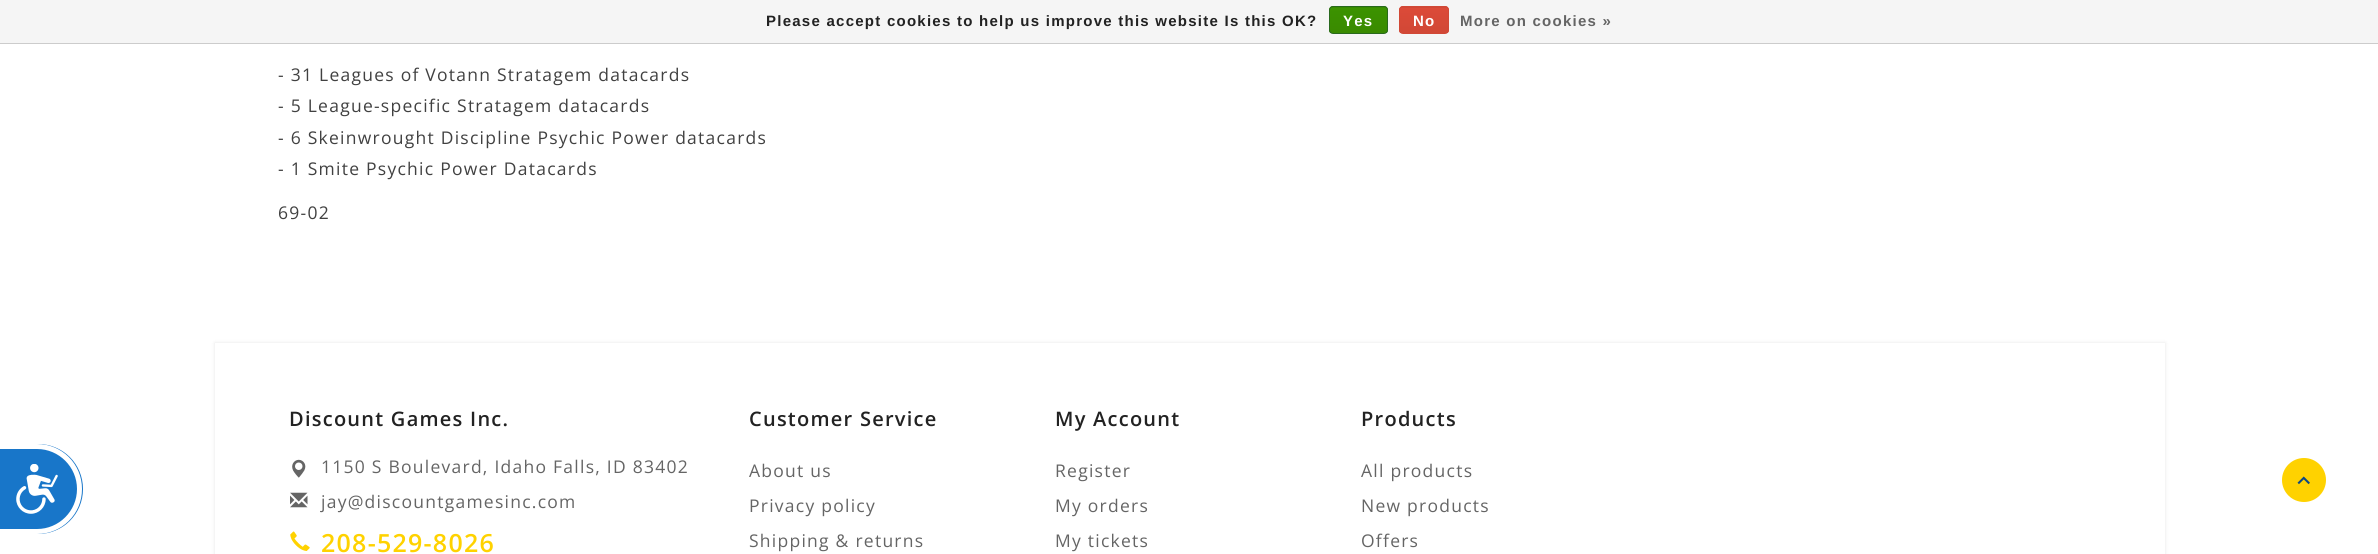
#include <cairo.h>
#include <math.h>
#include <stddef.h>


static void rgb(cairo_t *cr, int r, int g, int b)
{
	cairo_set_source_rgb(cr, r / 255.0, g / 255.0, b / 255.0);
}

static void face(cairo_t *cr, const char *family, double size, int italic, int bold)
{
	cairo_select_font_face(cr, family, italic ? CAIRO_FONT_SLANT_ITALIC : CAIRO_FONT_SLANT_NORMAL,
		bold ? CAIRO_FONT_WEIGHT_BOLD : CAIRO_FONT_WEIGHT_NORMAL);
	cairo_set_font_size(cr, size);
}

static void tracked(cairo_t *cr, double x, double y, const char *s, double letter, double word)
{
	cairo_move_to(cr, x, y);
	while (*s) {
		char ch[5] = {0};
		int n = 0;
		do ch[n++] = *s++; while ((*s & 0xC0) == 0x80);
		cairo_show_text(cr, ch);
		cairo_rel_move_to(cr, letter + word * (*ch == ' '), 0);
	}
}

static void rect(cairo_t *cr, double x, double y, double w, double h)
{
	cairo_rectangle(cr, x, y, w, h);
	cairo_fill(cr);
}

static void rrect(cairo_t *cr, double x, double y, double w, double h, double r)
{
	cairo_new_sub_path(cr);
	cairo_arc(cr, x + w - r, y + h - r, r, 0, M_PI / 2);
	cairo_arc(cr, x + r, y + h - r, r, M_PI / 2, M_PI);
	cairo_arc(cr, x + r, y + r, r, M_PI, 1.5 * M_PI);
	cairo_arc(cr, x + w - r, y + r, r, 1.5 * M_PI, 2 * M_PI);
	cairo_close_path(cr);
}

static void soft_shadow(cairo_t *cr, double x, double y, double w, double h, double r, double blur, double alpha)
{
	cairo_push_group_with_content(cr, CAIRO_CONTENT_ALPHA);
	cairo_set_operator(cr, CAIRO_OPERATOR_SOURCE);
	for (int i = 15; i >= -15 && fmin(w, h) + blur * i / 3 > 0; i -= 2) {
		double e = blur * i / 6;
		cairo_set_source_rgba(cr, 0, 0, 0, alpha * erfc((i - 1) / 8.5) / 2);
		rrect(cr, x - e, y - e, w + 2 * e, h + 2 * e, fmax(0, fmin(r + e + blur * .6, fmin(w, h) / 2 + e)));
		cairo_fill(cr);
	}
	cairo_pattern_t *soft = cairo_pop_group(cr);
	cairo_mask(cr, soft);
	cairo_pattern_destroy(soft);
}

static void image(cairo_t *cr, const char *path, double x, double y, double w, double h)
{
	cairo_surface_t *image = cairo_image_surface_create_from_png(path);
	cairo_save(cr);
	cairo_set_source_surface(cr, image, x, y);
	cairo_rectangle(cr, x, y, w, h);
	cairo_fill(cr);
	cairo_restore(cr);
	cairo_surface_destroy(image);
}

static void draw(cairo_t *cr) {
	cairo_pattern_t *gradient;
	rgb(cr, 255, 255, 255);
	cairo_paint(cr);
	rgb(cr, 24, 118, 201);
	cairo_new_path(cr);
	cairo_move_to(cr, 0, 444);
	cairo_line_to(cr, 38, 444);
	cairo_curve_to(cr, 63, 444, 83, 464, 83, 489);
	cairo_curve_to(cr, 83, 514, 63, 534, 38, 534);
	cairo_line_to(cr, 0, 534);
	cairo_close_path(cr);
	cairo_fill(cr);
	rgb(cr, 255, 255, 255);
	cairo_set_fill_rule(cr, CAIRO_FILL_RULE_EVEN_ODD);
	cairo_new_path(cr);
	cairo_move_to(cr, 0, 444);
	cairo_line_to(cr, 37, 444);
	cairo_curve_to(cr, 62, 444, 82, 464, 82, 489);
	cairo_curve_to(cr, 82, 514, 62, 534, 37, 534);
	cairo_line_to(cr, 0, 534);
	cairo_close_path(cr);
	cairo_move_to(cr, 0, 449);
	cairo_line_to(cr, 37, 449);
	cairo_curve_to(cr, 59, 449, 77, 467, 77, 489);
	cairo_curve_to(cr, 77, 511, 59, 529, 37, 529);
	cairo_line_to(cr, 0, 529);
	cairo_close_path(cr);
	cairo_fill(cr);
	image(cr, "image0.png", 16, 464, 42, 50);
	rgb(cr, 245, 245, 245);
	rect(cr, 0, 0, 2378, 43);
	rgb(cr, 204, 204, 204);
	rect(cr, 0, 43, 2378, 1);
	face(cr, "Liberation Sans", 15, 0, 1);
	rgb(cr, 34, 34, 34);
	tracked(cr, 766, 26, "Please accept cookies to help us improve this website Is this OK?", 1.25, 0);
	cairo_save(cr);
	cairo_set_fill_rule(cr, CAIRO_FILL_RULE_WINDING);
	rrect(cr, 1329, 6, 59, 28, 4);
	cairo_clip(cr);
	gradient = cairo_pattern_create_linear(1358, -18, 1358, 7.5);
	cairo_pattern_add_color_stop_rgba(gradient, 0, 0.235, 0.576, 0, 1);
	cairo_pattern_add_color_stop_rgba(gradient, 1, 0.224, 0.541, 0, 1);
	cairo_set_source(cr, gradient);
	cairo_pattern_destroy(gradient);
	rect(cr, 1329, 6, 59, 2);
	gradient = cairo_pattern_create_linear(1358, 7.5, 1358, 33);
	cairo_pattern_add_color_stop_rgba(gradient, 0, 0.235, 0.576, 0, 1);
	cairo_pattern_add_color_stop_rgba(gradient, 1, 0.224, 0.541, 0, 1);
	cairo_set_source(cr, gradient);
	cairo_pattern_destroy(gradient);
	rect(cr, 1329, 8, 59, 25);
	cairo_restore(cr);
	rrect(cr, 1329.5, 6.5, 58, 27, 3.5);
	rgb(cr, 41, 105, 29);
	cairo_set_line_width(cr, 1);
	cairo_stroke(cr);
	rgb(cr, 255, 255, 255);
	tracked(cr, 1343, 26, "Yes", 1.25, 0);
	cairo_save(cr);
	cairo_set_fill_rule(cr, CAIRO_FILL_RULE_WINDING);
	rrect(cr, 1399, 6, 50, 28, 4);
	cairo_clip(cr);
	gradient = cairo_pattern_create_linear(1424, -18, 1424, 7.5);
	cairo_pattern_add_color_stop_rgba(gradient, 0, 0.863, 0.29, 0.22, 1);
	cairo_pattern_add_color_stop_rgba(gradient, 1, 0.82, 0.282, 0.212, 1);
	cairo_set_source(cr, gradient);
	cairo_pattern_destroy(gradient);
	rect(cr, 1399, 6, 50, 2);
	gradient = cairo_pattern_create_linear(1424, 7.5, 1424, 33);
	cairo_pattern_add_color_stop_rgba(gradient, 0, 0.863, 0.29, 0.22, 1);
	cairo_pattern_add_color_stop_rgba(gradient, 1, 0.82, 0.282, 0.212, 1);
	cairo_set_source(cr, gradient);
	cairo_pattern_destroy(gradient);
	rect(cr, 1399, 8, 50, 25);
	cairo_restore(cr);
	rrect(cr, 1399.5, 6.5, 49, 27, 3.5);
	rgb(cr, 209, 72, 54);
	cairo_stroke(cr);
	rgb(cr, 255, 255, 255);
	tracked(cr, 1413, 26, "No", 1.25, 0);
	rgb(cr, 101, 101, 101);
	tracked(cr, 1460, 26, "More on cookies »", 1.25, 0);
	face(cr, "Open Sans", 17.5, 0, 0);
	rgb(cr, 65, 65, 65);
	tracked(cr, 278, 81, "- 31 Leagues of Votann Stratagem datacards", 1.25, 0);
	tracked(cr, 278, 112, "- 5 League-specific Stratagem datacards", 1.25, 0);
	tracked(cr, 278, 144, "- 6 Skeinwrought Discipline Psychic Power datacards", 1.25, 0);
	tracked(cr, 278, 175, "- 1 Smite Psychic Power Datacards", 1.25, 0);
	tracked(cr, 278, 219, "69-02", 1.25, 0);
	cairo_save(cr);
	cairo_new_path(cr);
	cairo_move_to(cr, 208, 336);
	cairo_line_to(cr, 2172, 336);
	cairo_line_to(cr, 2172, 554);
	cairo_line_to(cr, 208, 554);
	cairo_close_path(cr);
	cairo_move_to(cr, 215, 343);
	cairo_line_to(cr, 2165, 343);
	cairo_line_to(cr, 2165, 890);
	cairo_line_to(cr, 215, 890);
	cairo_close_path(cr);
	cairo_clip(cr);
	rgb(cr, 0, 0, 0);
	soft_shadow(cr, 215, 343, 1950, 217, 0, 2, 0.1);
	cairo_restore(cr);
	face(cr, "Open Sans SemiBold", 20, 0, 0);
	rgb(cr, 34, 34, 34);
	tracked(cr, 289, 426, "Discount Games Inc.", 1.25, 0);
	image(cr, "image1.png", 292, 459, 14, 19);
	face(cr, "Open Sans", 17.5, 0, 0);
	rgb(cr, 101, 101, 101);
	tracked(cr, 321, 473, "1150 S Boulevard, Idaho Falls, ID 83402", 1.25, 0);
	image(cr, "image2.png", 290, 492, 18, 16);
	tracked(cr, 321, 508, "jay@discountgamesinc.com", 1.25, 0);
	image(cr, "image3.png", 290, 531, 20, 20);
	face(cr, "Open Sans SemiBold", 25, 0, 0);
	rgb(cr, 255, 210, 0);
	tracked(cr, 321, 552, "208-529-8026", 1.25, 0);
	face(cr, "Open Sans SemiBold", 20, 0, 0);
	rgb(cr, 34, 34, 34);
	tracked(cr, 749, 426, "Customer Service", 1.25, 0);
	face(cr, "Open Sans", 17.5, 0, 0);
	rgb(cr, 101, 101, 101);
	tracked(cr, 749, 477, "About us", 1.25, 0);
	tracked(cr, 749, 512, "Privacy policy", 1.25, 0);
	tracked(cr, 749, 547, "Shipping & returns", 1.25, 0);
	face(cr, "Open Sans SemiBold", 20, 0, 0);
	rgb(cr, 34, 34, 34);
	tracked(cr, 1055, 426, "My Account", 1.25, 0);
	face(cr, "Open Sans", 17.5, 0, 0);
	rgb(cr, 101, 101, 101);
	tracked(cr, 1055, 477, "Register", 1.25, 0);
	tracked(cr, 1055, 512, "My orders", 1.25, 0);
	tracked(cr, 1055, 547, "My tickets", 1.25, 0);
	face(cr, "Open Sans SemiBold", 20, 0, 0);
	rgb(cr, 34, 34, 34);
	tracked(cr, 1361, 426, "Products", 1.25, 0);
	face(cr, "Open Sans", 17.5, 0, 0);
	rgb(cr, 101, 101, 101);
	tracked(cr, 1361, 477, "All products", 1.25, 0);
	tracked(cr, 1361, 512, "New products", 1.25, 0);
	tracked(cr, 1361, 547, "Offers", 1.25, 0);
	rgb(cr, 255, 210, 0);
	cairo_new_path(cr);
	cairo_arc(cr, 2304, 480, 23.5, 0, 2 * M_PI);
	cairo_fill_preserve(cr);
	rgb(cr, 255, 255, 255);
	cairo_set_line_width(cr, 3);
	cairo_stroke(cr);
	image(cr, "image4.png", 2297, 476, 13, 9);
}

int main(void) {
	cairo_surface_t *surface = cairo_image_surface_create(CAIRO_FORMAT_RGB24, 2378, 554);
	cairo_t *cr = cairo_create(surface);
	cairo_font_options_t *options = cairo_font_options_create();
	cairo_font_options_set_hint_metrics(options, CAIRO_HINT_METRICS_OFF);
	cairo_font_options_set_hint_style(options, CAIRO_HINT_STYLE_NONE);
	cairo_set_font_options(cr, options);
	cairo_set_miter_limit(cr, 4);
	draw(cr);
	cairo_surface_write_to_png(surface, "render.png");
	cairo_font_options_destroy(options);
	cairo_destroy(cr);
	cairo_surface_destroy(surface);
	return 0;
}
